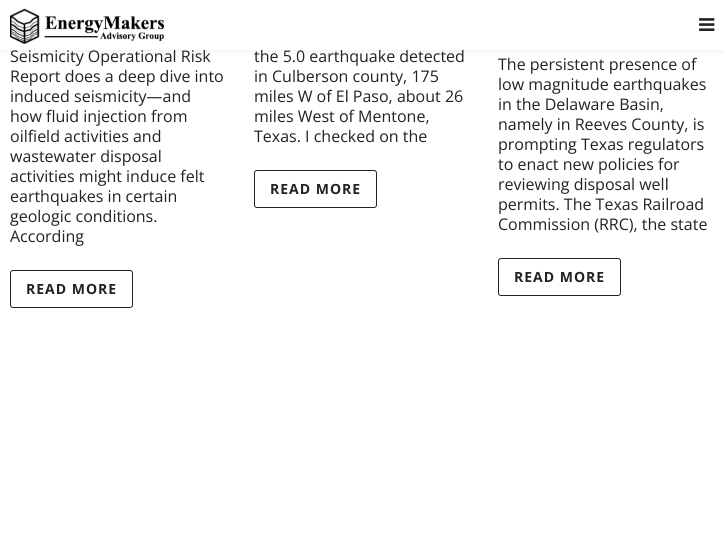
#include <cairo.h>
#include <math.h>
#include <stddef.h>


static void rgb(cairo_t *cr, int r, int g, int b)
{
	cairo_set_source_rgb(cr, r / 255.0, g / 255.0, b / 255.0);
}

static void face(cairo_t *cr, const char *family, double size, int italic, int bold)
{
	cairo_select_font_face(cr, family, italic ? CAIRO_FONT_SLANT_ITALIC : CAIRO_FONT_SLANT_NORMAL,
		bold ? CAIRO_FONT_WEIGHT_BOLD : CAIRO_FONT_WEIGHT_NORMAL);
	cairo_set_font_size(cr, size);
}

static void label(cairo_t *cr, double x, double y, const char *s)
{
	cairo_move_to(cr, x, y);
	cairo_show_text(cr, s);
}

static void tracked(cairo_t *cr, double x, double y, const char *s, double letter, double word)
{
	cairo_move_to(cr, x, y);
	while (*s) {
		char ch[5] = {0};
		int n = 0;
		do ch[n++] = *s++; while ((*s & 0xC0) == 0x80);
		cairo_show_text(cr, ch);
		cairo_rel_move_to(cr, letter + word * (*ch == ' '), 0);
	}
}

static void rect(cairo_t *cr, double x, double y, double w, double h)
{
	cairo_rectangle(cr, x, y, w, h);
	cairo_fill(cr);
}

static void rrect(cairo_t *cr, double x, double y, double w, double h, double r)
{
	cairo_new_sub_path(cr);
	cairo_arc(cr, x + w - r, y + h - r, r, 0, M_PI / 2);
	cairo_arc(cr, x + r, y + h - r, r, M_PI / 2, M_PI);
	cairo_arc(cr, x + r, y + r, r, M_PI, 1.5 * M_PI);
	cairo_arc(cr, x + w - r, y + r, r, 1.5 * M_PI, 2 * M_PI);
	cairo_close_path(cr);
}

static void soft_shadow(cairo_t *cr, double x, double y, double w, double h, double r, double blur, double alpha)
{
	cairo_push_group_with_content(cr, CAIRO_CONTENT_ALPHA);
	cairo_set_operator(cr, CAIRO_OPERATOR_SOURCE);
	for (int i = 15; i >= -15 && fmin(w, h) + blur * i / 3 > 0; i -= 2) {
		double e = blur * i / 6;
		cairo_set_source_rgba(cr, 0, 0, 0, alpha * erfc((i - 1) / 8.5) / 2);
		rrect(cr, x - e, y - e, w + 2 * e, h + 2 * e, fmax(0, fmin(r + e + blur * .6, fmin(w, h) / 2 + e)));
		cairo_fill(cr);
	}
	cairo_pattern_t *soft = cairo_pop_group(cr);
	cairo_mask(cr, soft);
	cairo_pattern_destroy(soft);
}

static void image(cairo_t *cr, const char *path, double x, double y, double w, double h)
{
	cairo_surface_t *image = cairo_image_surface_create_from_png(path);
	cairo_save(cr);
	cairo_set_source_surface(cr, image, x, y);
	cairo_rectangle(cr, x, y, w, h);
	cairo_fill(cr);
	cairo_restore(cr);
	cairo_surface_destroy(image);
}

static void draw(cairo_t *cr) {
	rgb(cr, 255, 255, 255);
	cairo_paint(cr);
	rgb(cr, 0, 0, 0);
	soft_shadow(cr, 0, 2, 724, 50, 0, 3, 0.05);
	face(cr, "Open Sans", 16, 0, 0);
	rgb(cr, 36, 33, 33);
	label(cr, 10, 62, "Seismicity Operational Risk");
	label(cr, 254, 62, "the 5.0 earthquake detected");
	rgb(cr, 255, 255, 255);
	rect(cr, 0, 0, 724, 50);
	image(cr, "image0.png", 10, 8, 154, 36);
	image(cr, "image1.png", 699, 18, 16, 13);
	rgb(cr, 36, 33, 33);
	label(cr, 10, 82, "Report does a deep dive into");
	label(cr, 10, 102, "induced seismicity—and");
	label(cr, 10, 122, "how fluid injection from");
	label(cr, 10, 142, "oilfield activities and");
	label(cr, 10, 162, "wastewater disposal");
	label(cr, 10, 182, "activities might induce felt");
	label(cr, 10, 202, "earthquakes in certain");
	label(cr, 10, 222, "geologic conditions.");
	label(cr, 10, 242, "According");
	rrect(cr, 10.5, 270.5, 122, 37, 2.5);
	cairo_set_line_width(cr, 1);
	cairo_stroke(cr);
	face(cr, "Open Sans", 14, 0, 1);
	tracked(cr, 26, 294, "READ MORE", 1, 0);
	face(cr, "Open Sans", 16, 0, 0);
	label(cr, 254, 82, "in Culberson county, 175");
	label(cr, 254, 102, "miles W of El Paso, about 26");
	label(cr, 254, 122, "miles West of Mentone,");
	label(cr, 254, 142, "Texas. I checked on the");
	rrect(cr, 254.5, 170.5, 122, 37, 2.5);
	cairo_stroke(cr);
	face(cr, "Open Sans", 14, 0, 1);
	tracked(cr, 270, 194, "READ MORE", 1, 0);
	face(cr, "Open Sans", 16, 0, 0);
	label(cr, 498, 70, "The persistent presence of");
	label(cr, 498, 90, "low magnitude earthquakes");
	label(cr, 498, 110, "in the Delaware Basin,");
	label(cr, 498, 130, "namely in Reeves County, is");
	label(cr, 498, 150, "prompting Texas regulators");
	label(cr, 498, 170, "to enact new policies for");
	label(cr, 498, 190, "reviewing disposal well");
	label(cr, 498, 210, "permits. The Texas Railroad");
	label(cr, 498, 230, "Commission (RRC), the state");
	rrect(cr, 498.5, 258.5, 122, 37, 2.5);
	cairo_stroke(cr);
	face(cr, "Open Sans", 14, 0, 1);
	tracked(cr, 514, 282, "READ MORE", 1, 0);
}

int main(void) {
	cairo_surface_t *surface = cairo_image_surface_create(CAIRO_FORMAT_RGB24, 724, 551);
	cairo_t *cr = cairo_create(surface);
	cairo_font_options_t *options = cairo_font_options_create();
	cairo_font_options_set_hint_metrics(options, CAIRO_HINT_METRICS_OFF);
	cairo_font_options_set_hint_style(options, CAIRO_HINT_STYLE_NONE);
	cairo_set_font_options(cr, options);
	cairo_set_miter_limit(cr, 4);
	draw(cr);
	cairo_surface_write_to_png(surface, "render.png");
	cairo_font_options_destroy(options);
	cairo_destroy(cr);
	cairo_surface_destroy(surface);
	return 0;
}
